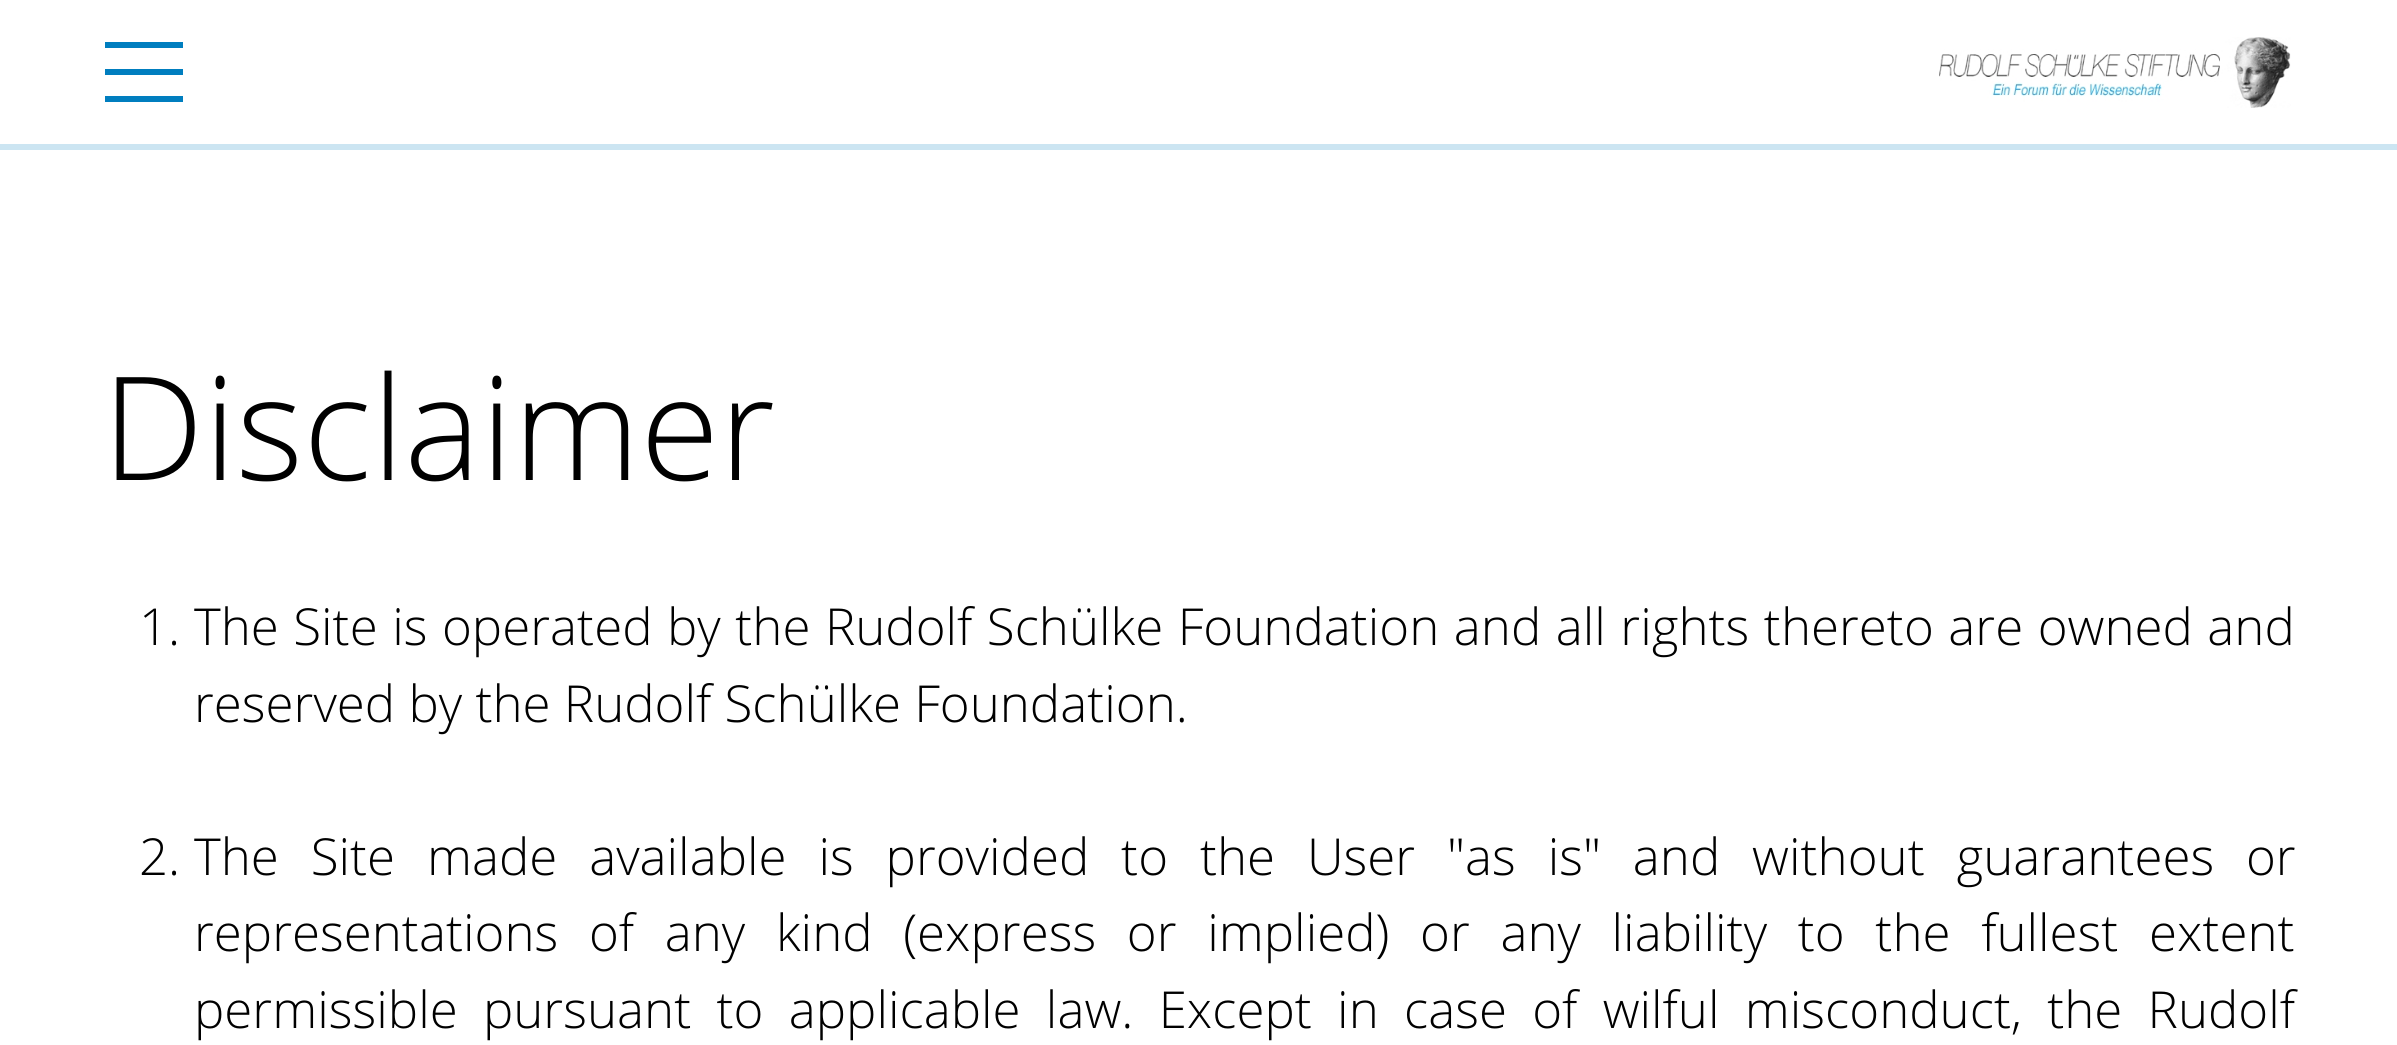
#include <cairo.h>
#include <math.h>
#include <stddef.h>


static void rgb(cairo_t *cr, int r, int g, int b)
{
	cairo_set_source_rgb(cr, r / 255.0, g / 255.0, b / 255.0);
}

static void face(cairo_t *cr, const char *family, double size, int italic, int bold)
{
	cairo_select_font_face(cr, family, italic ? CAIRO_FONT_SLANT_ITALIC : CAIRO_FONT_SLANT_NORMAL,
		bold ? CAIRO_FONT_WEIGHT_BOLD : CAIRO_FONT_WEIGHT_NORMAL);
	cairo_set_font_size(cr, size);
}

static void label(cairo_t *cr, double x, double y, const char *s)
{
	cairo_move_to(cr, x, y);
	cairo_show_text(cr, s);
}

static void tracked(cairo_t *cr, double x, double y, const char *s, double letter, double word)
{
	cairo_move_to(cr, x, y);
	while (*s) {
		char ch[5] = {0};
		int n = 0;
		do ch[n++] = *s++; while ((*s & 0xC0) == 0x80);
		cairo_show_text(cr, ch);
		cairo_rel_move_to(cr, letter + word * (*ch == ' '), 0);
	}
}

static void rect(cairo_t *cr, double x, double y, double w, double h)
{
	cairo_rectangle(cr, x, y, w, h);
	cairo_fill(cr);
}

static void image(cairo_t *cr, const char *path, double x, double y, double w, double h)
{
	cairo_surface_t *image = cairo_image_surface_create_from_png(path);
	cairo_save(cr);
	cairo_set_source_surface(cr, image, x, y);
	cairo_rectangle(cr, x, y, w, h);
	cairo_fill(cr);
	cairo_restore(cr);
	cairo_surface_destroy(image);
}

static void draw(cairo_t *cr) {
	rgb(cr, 255, 255, 255);
	cairo_paint(cr);
	rgb(cr, 204, 229, 242);
	rect(cr, 0, 144, 2397, 6);
	rgb(cr, 0, 126, 191);
	rect(cr, 105, 42, 78, 6);
	rect(cr, 105, 69, 78, 6);
	rect(cr, 105, 96, 78, 6);
	image(cr, "image0.png", 1939, 37, 352, 71);
	face(cr, "Open Sans Light", 144, 0, 0);
	rgb(cr, 0, 0, 0);
	label(cr, 102, 480, "Disclaimer");
	face(cr, "Open Sans Light", 51, 0, 0);
	label(cr, 139, 645, "1.");
	tracked(cr, 194, 645, "The Site is operated by the Rudolf Schülke Foundation and all rights thereto are owned and", 0, 1.25);
	label(cr, 194, 722, "reserved by the Rudolf Schülke Foundation.");
	label(cr, 139, 875, "2.");
	tracked(cr, 194, 875, "The Site made available is provided to the User \"as is\" and without guarantees or", 0, 18.6);
	tracked(cr, 194, 951, "representations of any kind (express or implied) or any liability to the fullest extent", 0, 17.4);
	tracked(cr, 194, 1028, "permissible pursuant to applicable law. Except in case of wilful misconduct, the Rudolf", 0, 12);
}

int main(void) {
	cairo_surface_t *surface = cairo_image_surface_create(CAIRO_FORMAT_RGB24, 2397, 1045);
	cairo_t *cr = cairo_create(surface);
	cairo_font_options_t *options = cairo_font_options_create();
	cairo_font_options_set_hint_metrics(options, CAIRO_HINT_METRICS_OFF);
	cairo_font_options_set_hint_style(options, CAIRO_HINT_STYLE_NONE);
	cairo_set_font_options(cr, options);
	cairo_set_miter_limit(cr, 4);
	draw(cr);
	cairo_surface_write_to_png(surface, "render.png");
	cairo_font_options_destroy(options);
	cairo_destroy(cr);
	cairo_surface_destroy(surface);
	return 0;
}
